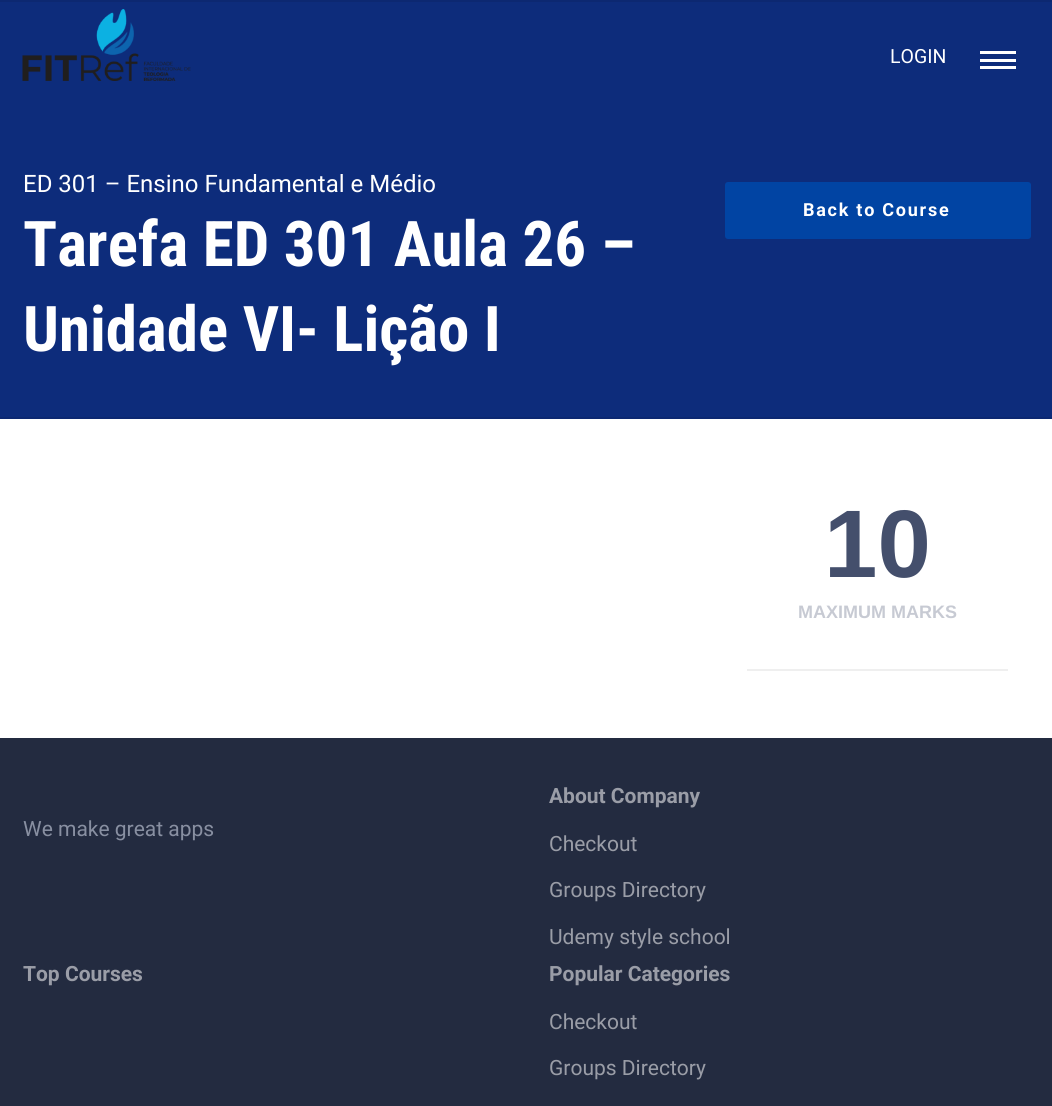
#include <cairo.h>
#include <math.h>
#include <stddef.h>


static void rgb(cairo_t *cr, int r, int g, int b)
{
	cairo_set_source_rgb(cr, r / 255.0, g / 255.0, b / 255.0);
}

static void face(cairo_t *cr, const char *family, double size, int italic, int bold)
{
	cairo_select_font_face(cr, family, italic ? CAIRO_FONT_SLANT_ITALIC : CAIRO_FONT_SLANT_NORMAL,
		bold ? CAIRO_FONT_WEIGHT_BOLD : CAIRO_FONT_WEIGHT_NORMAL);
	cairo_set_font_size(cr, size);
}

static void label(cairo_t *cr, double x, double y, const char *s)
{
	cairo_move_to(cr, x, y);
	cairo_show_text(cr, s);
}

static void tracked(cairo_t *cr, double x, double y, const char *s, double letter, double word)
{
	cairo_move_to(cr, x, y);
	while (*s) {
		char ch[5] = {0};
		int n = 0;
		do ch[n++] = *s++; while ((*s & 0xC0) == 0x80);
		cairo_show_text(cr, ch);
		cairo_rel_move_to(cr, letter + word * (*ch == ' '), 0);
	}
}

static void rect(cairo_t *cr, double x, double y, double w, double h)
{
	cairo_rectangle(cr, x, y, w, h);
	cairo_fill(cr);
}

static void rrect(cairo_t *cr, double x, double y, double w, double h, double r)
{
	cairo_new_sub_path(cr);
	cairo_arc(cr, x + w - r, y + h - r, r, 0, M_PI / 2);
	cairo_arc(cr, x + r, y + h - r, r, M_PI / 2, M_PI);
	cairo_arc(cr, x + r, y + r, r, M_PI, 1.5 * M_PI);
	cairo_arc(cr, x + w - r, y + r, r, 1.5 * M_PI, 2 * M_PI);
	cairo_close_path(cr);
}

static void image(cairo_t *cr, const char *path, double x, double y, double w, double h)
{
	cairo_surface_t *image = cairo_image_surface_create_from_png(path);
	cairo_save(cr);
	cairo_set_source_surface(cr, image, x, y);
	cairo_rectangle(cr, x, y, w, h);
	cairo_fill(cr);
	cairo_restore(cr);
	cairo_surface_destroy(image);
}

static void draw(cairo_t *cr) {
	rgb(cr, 255, 255, 255);
	cairo_paint(cr);
	rgb(cr, 13, 44, 123);
	rect(cr, 0, 2, 1052, 415);
	image(cr, "image0.png", 22, 9, 169, 72);
	face(cr, "Roboto", 19.5, 0, 0);
	rgb(cr, 255, 255, 255);
	label(cr, 890, 63, "LOGIN");
	rect(cr, 980, 59, 36, 3);
	rect(cr, 980, 51, 36, 3);
	rect(cr, 980, 66, 36, 3);
	rgb(cr, 12, 40, 113);
	rect(cr, 0, 0, 1052, 2);
	rect(cr, 0, 417, 1052, 2);
	face(cr, "Roboto", 24, 0, 0);
	rgb(cr, 255, 255, 255);
	label(cr, 23, 192, "ED 301 – Ensino Fundamental e Médio");
	face(cr, "Roboto Condensed", 63, 0, 1);
	label(cr, 23, 266, "Tarefa ED 301 Aula 26 –");
	label(cr, 23, 351, "Unidade VI- Lição I");
	rgb(cr, 1, 68, 163);
	rrect(cr, 725, 182, 306, 57, 3);
	cairo_fill(cr);
	face(cr, "Roboto", 18, 0, 1);
	rgb(cr, 255, 255, 255);
	tracked(cr, 803, 216, "Back to Course", 1.75, 0);
	rgb(cr, 239, 239, 239);
	rect(cr, 747, 669, 261, 2);
	face(cr, "Liberation Sans", 96, 0, 1);
	rgb(cr, 68, 79, 108);
	label(cr, 824, 577, "10");
	face(cr, "Liberation Sans", 18, 0, 1);
	rgb(cr, 199, 202, 211);
	label(cr, 798, 618, "MAXIMUM MARKS");
	rgb(cr, 35, 43, 64);
	rect(cr, 0, 738, 1052, 368);
	face(cr, "Roboto", 21, 0, 0);
	rgb(cr, 136, 143, 161);
	label(cr, 23, 836, "We make great apps");
	face(cr, "Roboto", 21, 0, 1);
	rgb(cr, 154, 157, 167);
	label(cr, 549, 803, "About Company");
	face(cr, "Roboto", 21, 0, 0);
	label(cr, 549, 851, "Checkout");
	label(cr, 549, 897, "Groups Directory");
	label(cr, 549, 944, "Udemy style school");
	face(cr, "Roboto", 21, 0, 1);
	label(cr, 23, 981, "Top Courses");
	label(cr, 549, 981, "Popular Categories");
	face(cr, "Roboto", 21, 0, 0);
	label(cr, 549, 1029, "Checkout");
	label(cr, 549, 1075, "Groups Directory");
}

int main(void) {
	cairo_surface_t *surface = cairo_image_surface_create(CAIRO_FORMAT_RGB24, 1052, 1106);
	cairo_t *cr = cairo_create(surface);
	cairo_font_options_t *options = cairo_font_options_create();
	cairo_font_options_set_hint_metrics(options, CAIRO_HINT_METRICS_OFF);
	cairo_font_options_set_hint_style(options, CAIRO_HINT_STYLE_NONE);
	cairo_set_font_options(cr, options);
	cairo_set_miter_limit(cr, 4);
	draw(cr);
	cairo_surface_write_to_png(surface, "render.png");
	cairo_font_options_destroy(options);
	cairo_destroy(cr);
	cairo_surface_destroy(surface);
	return 0;
}
